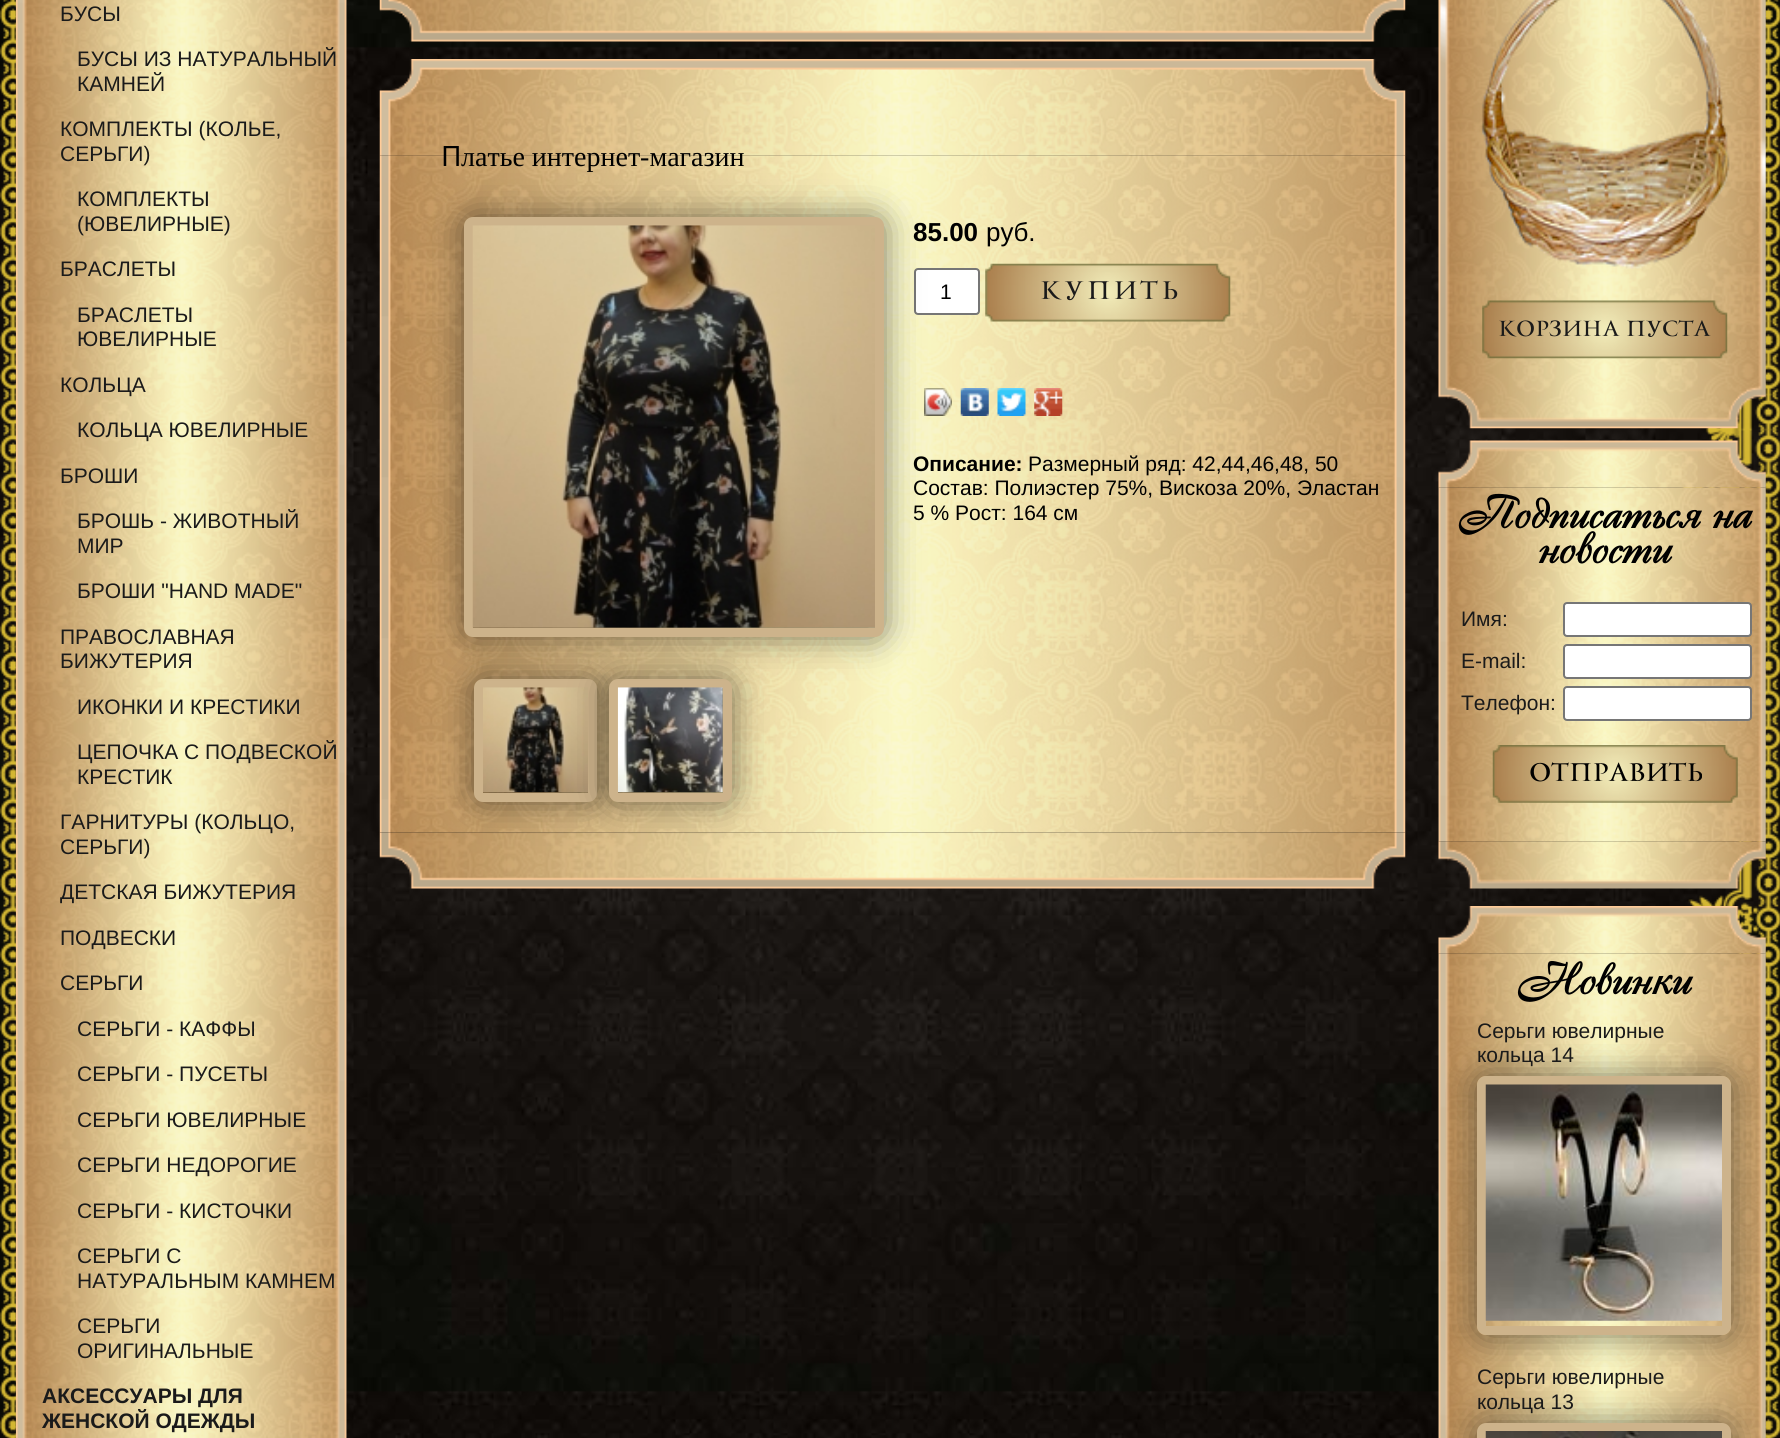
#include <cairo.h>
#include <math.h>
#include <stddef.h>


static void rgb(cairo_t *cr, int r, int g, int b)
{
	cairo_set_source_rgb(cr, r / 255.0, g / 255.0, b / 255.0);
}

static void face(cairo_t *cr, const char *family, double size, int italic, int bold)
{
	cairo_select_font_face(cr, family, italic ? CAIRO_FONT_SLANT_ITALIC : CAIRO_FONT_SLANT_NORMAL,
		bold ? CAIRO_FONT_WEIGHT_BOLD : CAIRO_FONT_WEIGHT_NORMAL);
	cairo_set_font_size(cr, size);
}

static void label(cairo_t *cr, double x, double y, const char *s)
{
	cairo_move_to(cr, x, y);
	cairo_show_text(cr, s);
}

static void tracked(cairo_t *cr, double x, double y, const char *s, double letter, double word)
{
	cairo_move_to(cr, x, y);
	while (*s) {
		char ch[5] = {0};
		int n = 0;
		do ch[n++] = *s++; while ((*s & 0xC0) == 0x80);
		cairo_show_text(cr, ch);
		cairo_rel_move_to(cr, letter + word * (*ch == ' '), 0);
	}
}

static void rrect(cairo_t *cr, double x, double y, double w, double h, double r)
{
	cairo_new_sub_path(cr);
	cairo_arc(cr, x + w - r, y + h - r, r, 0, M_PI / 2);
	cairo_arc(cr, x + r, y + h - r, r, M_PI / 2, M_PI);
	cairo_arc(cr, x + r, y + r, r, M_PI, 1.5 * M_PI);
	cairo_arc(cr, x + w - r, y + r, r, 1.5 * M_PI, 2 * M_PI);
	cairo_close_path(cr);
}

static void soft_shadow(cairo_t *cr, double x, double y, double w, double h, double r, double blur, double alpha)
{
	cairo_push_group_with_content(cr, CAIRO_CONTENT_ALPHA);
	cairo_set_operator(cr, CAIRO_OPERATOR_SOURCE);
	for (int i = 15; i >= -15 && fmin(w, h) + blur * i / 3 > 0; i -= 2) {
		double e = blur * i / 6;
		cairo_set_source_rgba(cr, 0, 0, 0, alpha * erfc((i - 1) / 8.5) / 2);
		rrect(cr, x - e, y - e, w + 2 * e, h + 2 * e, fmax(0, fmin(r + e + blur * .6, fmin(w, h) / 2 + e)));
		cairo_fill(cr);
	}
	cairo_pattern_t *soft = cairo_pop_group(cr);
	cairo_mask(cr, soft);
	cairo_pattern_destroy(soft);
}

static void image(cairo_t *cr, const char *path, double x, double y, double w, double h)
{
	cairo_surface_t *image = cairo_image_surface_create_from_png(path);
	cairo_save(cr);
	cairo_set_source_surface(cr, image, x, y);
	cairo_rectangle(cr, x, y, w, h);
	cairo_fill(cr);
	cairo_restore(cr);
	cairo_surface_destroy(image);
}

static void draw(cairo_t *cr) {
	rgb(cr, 255, 255, 255);
	cairo_paint(cr);
	image(cr, "image0.png", 0, 0, 1780, 1438);
	image(cr, "image1.png", 0, 0, 16, 1438);
	image(cr, "image2.png", 1681, 0, 99, 1438);
	image(cr, "image3.png", 15, 0, 332, 1438);
	face(cr, "Liberation Sans", 21, 0, 0);
	rgb(cr, 26, 26, 26);
	label(cr, 60, 21, "БУСЫ");
	label(cr, 77, 66, "БУСЫ ИЗ НАТУРАЛЬНЫЙ");
	label(cr, 77, 91, "КАМНЕЙ");
	label(cr, 60, 136, "КОМПЛЕКТЫ (КОЛЬЕ,");
	label(cr, 60, 161, "СЕРЬГИ)");
	label(cr, 77, 206, "КОМПЛЕКТЫ");
	label(cr, 77, 231, "(ЮВЕЛИРНЫЕ)");
	label(cr, 60, 276, "БРАСЛЕТЫ");
	label(cr, 77, 322, "БРАСЛЕТЫ");
	label(cr, 77, 346, "ЮВЕЛИРНЫЕ");
	label(cr, 60, 392, "КОЛЬЦА");
	label(cr, 77, 437, "КОЛЬЦА ЮВЕЛИРНЫЕ");
	label(cr, 60, 483, "БРОШИ");
	label(cr, 77, 528, "БРОШЬ - ЖИВОТНЫЙ");
	label(cr, 77, 553, "МИР");
	label(cr, 77, 598, "БРОШИ \"HAND MADE\"");
	label(cr, 60, 644, "ПРАВОСЛАВНАЯ");
	label(cr, 60, 668, "БИЖУТЕРИЯ");
	label(cr, 77, 714, "ИКОНКИ И КРЕСТИКИ");
	label(cr, 77, 759, "ЦЕПОЧКА С ПОДВЕСКОЙ");
	label(cr, 77, 784, "КРЕСТИК");
	label(cr, 60, 829, "ГАРНИТУРЫ (КОЛЬЦО,");
	label(cr, 60, 854, "СЕРЬГИ)");
	label(cr, 60, 899, "ДЕТСКАЯ БИЖУТЕРИЯ");
	label(cr, 60, 945, "ПОДВЕСКИ");
	label(cr, 60, 990, "СЕРЬГИ");
	label(cr, 77, 1036, "СЕРЬГИ - КАФФЫ");
	label(cr, 77, 1081, "СЕРЬГИ - ПУСЕТЫ");
	label(cr, 77, 1127, "СЕРЬГИ ЮВЕЛИРНЫЕ");
	label(cr, 77, 1172, "СЕРЬГИ НЕДОРОГИЕ");
	label(cr, 77, 1218, "СЕРЬГИ - КИСТОЧКИ");
	label(cr, 77, 1263, "СЕРЬГИ С");
	label(cr, 77, 1288, "НАТУРАЛЬНЫМ КАМНЕМ");
	label(cr, 77, 1333, "СЕРЬГИ");
	label(cr, 77, 1358, "ОРИГИНАЛЬНЫЕ");
	face(cr, "Liberation Sans", 21, 0, 1);
	label(cr, 42, 1403, "АКСЕССУАРЫ ДЛЯ");
	label(cr, 42, 1428, "ЖЕНСКОЙ ОДЕЖДЫ");
	image(cr, "image4.png", 379, 0, 1027, 42);
	image(cr, "image5.png", 379, 59, 1027, 97);
	image(cr, "image6.png", 379, 155, 1027, 678);
	face(cr, "Noto Sans", 28, 0, 0);
	rgb(cr, 0, 0, 0);
	label(cr, 441, 166, "П");
	face(cr, "Liberation Serif", 28, 0, 0);
	label(cr, 461, 166, "латье интернет-магазин");
	image(cr, "image16.png", 379, 832, 1027, 57);
	rgb(cr, 0, 0, 0);
	soft_shadow(cr, 474, 679, 123, 123, 9, 17.5, 0.5);
	rrect(cr, 478.5, 683.5, 114, 114, 4.5);
	rgb(cr, 205, 179, 139);
	cairo_set_line_width(cr, 9);
	cairo_stroke(cr);
	image(cr, "image8.png", 483, 687, 105, 106);
	rgb(cr, 0, 0, 0);
	soft_shadow(cr, 609, 679, 123, 123, 9, 17.5, 0.5);
	rrect(cr, 613.5, 683.5, 114, 114, 4.5);
	rgb(cr, 205, 179, 139);
	cairo_stroke(cr);
	image(cr, "image9.png", 617, 687, 106, 106);
	rgb(cr, 255, 255, 255);
	rrect(cr, 915, 269, 64, 45, 3);
	cairo_fill_preserve(cr);
	rgb(cr, 118, 118, 118);
	cairo_set_line_width(cr, 2);
	cairo_stroke(cr);
	image(cr, "image11.png", 924, 388, 28, 28);
	image(cr, "image12.png", 924, 388, 28, 28);
	rgb(cr, 0, 0, 0);
	soft_shadow(cr, 464, 217, 420, 420, 9, 17.5, 0.5);
	rrect(cr, 468.5, 221.5, 411, 411, 4.5);
	rgb(cr, 205, 179, 139);
	cairo_set_line_width(cr, 9);
	cairo_stroke(cr);
	image(cr, "image7.png", 472, 225, 403, 403);
	face(cr, "Liberation Sans", 26, 0, 1);
	rgb(cr, 0, 0, 0);
	label(cr, 913, 241, "85.00");
	face(cr, "Liberation Sans", 26, 0, 0);
	label(cr, 986, 241, "руб.");
	face(cr, "Liberation Sans", 21, 0, 0);
	label(cr, 940, 299, "1");
	image(cr, "image10.png", 985, 263, 246, 59);
	face(cr, "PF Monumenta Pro", 24.5, 0, 0);
	rgb(cr, 26, 26, 26);
	tracked(cr, 1040, 299, "КУПИТЬ", 3.5, 0);
	image(cr, "image13.png", 960, 388, 29, 28);
	image(cr, "image14.png", 997, 388, 29, 28);
	image(cr, "image15.png", 1034, 388, 29, 28);
	face(cr, "Liberation Sans", 21, 0, 1);
	rgb(cr, 0, 0, 0);
	label(cr, 913, 471, "Описание:");
	face(cr, "Liberation Sans", 21, 0, 0);
	label(cr, 1028, 471, "Размерный ряд: 42,44,46,48, 50");
	label(cr, 913, 495, "Состав: Полиэстер 75%, Вискоза 20%, Эластан");
	label(cr, 913, 520, "5 % Рост: 164 см");
	image(cr, "image17.png", 1438, 0, 328, 429);
	image(cr, "image18.png", 1481, 0, 249, 269);
	image(cr, "image19.png", 1482, 300, 246, 59);
	face(cr, "PF Monumenta Pro", 21, 0, 0);
	rgb(cr, 26, 26, 26);
	label(cr, 1498, 336, "Корзина пуста");
	image(cr, "image20.png", 1438, 440, 328, 48);
	image(cr, "image21.png", 1438, 487, 328, 355);
	face(cr, "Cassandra", 43.75, 0, 1);
	rgb(cr, 0, 0, 0);
	label(cr, 1458, 528, "Подписаться на");
	label(cr, 1537, 563, "новости");
	face(cr, "Liberation Sans", 21, 0, 0);
	rgb(cr, 26, 26, 26);
	label(cr, 1461, 626, "Имя:");
	rgb(cr, 255, 255, 255);
	rrect(cr, 1564, 603, 187, 33, 3);
	cairo_fill_preserve(cr);
	rgb(cr, 118, 118, 118);
	cairo_set_line_width(cr, 2);
	cairo_stroke(cr);
	rgb(cr, 26, 26, 26);
	label(cr, 1461, 668, "E-mail:");
	rgb(cr, 255, 255, 255);
	rrect(cr, 1564, 645, 187, 33, 3);
	cairo_fill_preserve(cr);
	rgb(cr, 118, 118, 118);
	cairo_stroke(cr);
	rgb(cr, 26, 26, 26);
	label(cr, 1461, 710, "Телефон:");
	rgb(cr, 255, 255, 255);
	rrect(cr, 1564, 687, 187, 33, 3);
	cairo_fill_preserve(cr);
	rgb(cr, 118, 118, 118);
	cairo_stroke(cr);
	image(cr, "image22.png", 1492, 745, 246, 58);
	face(cr, "PF Monumenta Pro", 24.5, 0, 0);
	rgb(cr, 0, 0, 0);
	label(cr, 1529, 781, "ОТПРАВИТЬ");
	image(cr, "image23.png", 1438, 841, 328, 48);
	image(cr, "image24.png", 1438, 906, 328, 48);
	image(cr, "image25.png", 1438, 953, 328, 485);
	face(cr, "Cassandra", 43.75, 0, 1);
	label(cr, 1517, 994, "Новинки");
	cairo_save(cr);
	cairo_set_fill_rule(cr, CAIRO_FILL_RULE_EVEN_ODD);
	cairo_new_path(cr);
	cairo_move_to(cr, 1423, 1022);
	cairo_line_to(cr, 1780, 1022);
	cairo_line_to(cr, 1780, 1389);
	cairo_line_to(cr, 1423, 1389);
	cairo_close_path(cr);
	cairo_move_to(cr, 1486, 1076);
	cairo_line_to(cr, 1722, 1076);
	cairo_curve_to(cr, 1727, 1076, 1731, 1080, 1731, 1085);
	cairo_line_to(cr, 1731, 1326);
	cairo_curve_to(cr, 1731, 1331, 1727, 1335, 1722, 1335);
	cairo_line_to(cr, 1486, 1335);
	cairo_curve_to(cr, 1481, 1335, 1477, 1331, 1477, 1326);
	cairo_line_to(cr, 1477, 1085);
	cairo_curve_to(cr, 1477, 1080, 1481, 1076, 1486, 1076);
	cairo_close_path(cr);
	cairo_clip(cr);
	rgb(cr, 0, 0, 0);
	soft_shadow(cr, 1477, 1076, 254, 259, 9, 17.5, 0.5);
	cairo_restore(cr);
	rrect(cr, 1481.5, 1080.5, 245, 250, 4.5);
	rgb(cr, 205, 179, 139);
	cairo_set_line_width(cr, 9);
	cairo_stroke(cr);
	image(cr, "image26.png", 1485, 1084, 237, 237);
	face(cr, "Liberation Sans", 21, 0, 0);
	rgb(cr, 26, 26, 26);
	label(cr, 1477, 1038, "Серьги ювелирные");
	label(cr, 1477, 1062, "кольца 14");
	rgb(cr, 0, 0, 0);
	soft_shadow(cr, 1477, 1423, 254, 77, 9, 17.5, 0.5);
	rrect(cr, 1481.5, 1427.5, 245, 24, 4.5);
	rgb(cr, 205, 179, 139);
	cairo_stroke(cr);
	image(cr, "image27.png", 1485, 1431, 237, 7);
	rgb(cr, 26, 26, 26);
	label(cr, 1477, 1384, "Серьги ювелирные");
	label(cr, 1477, 1409, "кольца 13");
}

int main(void) {
	cairo_surface_t *surface = cairo_image_surface_create(CAIRO_FORMAT_RGB24, 1780, 1438);
	cairo_t *cr = cairo_create(surface);
	cairo_font_options_t *options = cairo_font_options_create();
	cairo_font_options_set_hint_metrics(options, CAIRO_HINT_METRICS_OFF);
	cairo_font_options_set_hint_style(options, CAIRO_HINT_STYLE_NONE);
	cairo_set_font_options(cr, options);
	cairo_set_miter_limit(cr, 4);
	draw(cr);
	cairo_surface_write_to_png(surface, "render.png");
	cairo_font_options_destroy(options);
	cairo_destroy(cr);
	cairo_surface_destroy(surface);
	return 0;
}
